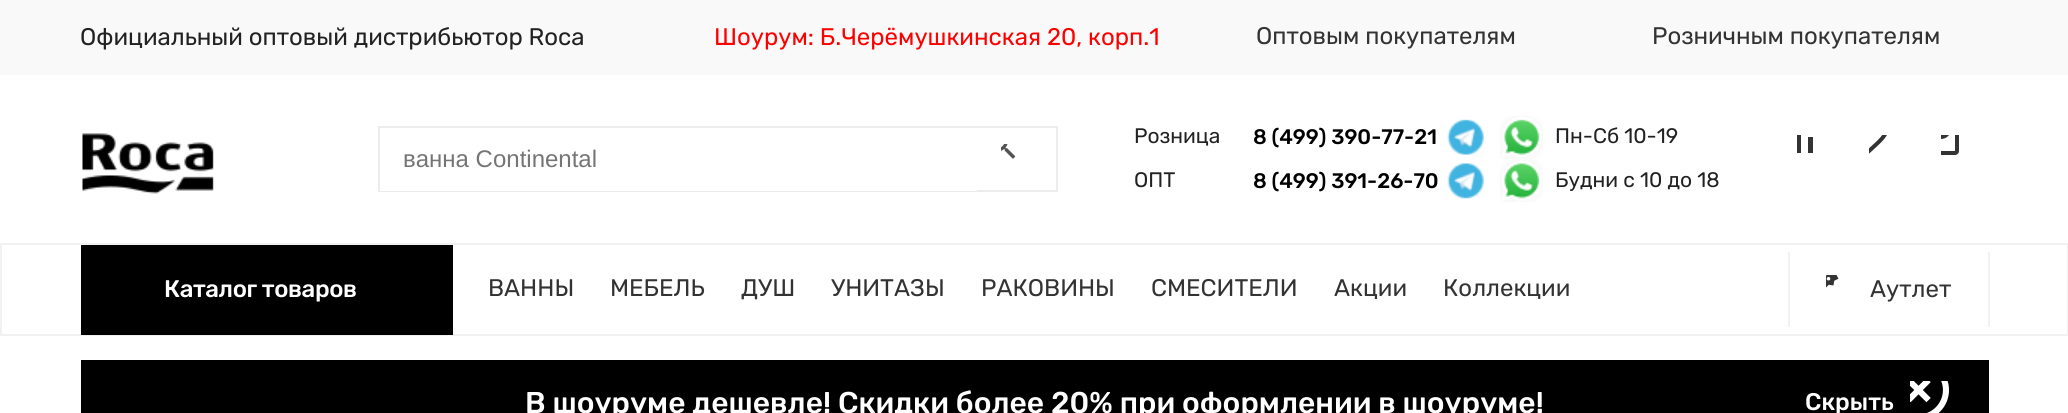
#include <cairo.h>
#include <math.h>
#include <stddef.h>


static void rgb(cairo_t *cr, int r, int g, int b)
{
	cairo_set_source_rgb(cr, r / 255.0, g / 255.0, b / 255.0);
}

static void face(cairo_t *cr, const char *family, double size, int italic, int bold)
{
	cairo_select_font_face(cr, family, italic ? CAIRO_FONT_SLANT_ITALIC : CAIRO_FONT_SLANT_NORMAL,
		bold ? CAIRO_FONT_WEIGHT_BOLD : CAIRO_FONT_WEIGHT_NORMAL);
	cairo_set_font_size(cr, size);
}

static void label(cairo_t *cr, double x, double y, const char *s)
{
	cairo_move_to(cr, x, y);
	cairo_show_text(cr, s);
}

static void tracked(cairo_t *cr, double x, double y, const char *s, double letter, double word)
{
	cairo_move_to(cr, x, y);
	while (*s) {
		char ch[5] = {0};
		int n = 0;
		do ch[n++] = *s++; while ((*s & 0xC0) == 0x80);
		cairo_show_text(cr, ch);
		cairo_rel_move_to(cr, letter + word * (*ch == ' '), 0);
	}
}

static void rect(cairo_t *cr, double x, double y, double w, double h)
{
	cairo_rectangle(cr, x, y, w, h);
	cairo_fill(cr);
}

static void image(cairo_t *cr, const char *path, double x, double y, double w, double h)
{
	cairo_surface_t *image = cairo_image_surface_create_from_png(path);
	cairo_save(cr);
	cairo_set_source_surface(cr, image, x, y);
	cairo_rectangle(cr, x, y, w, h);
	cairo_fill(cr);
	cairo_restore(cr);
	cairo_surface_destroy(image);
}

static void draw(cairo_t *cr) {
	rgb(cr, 255, 255, 255);
	cairo_paint(cr);
	rgb(cr, 249, 249, 249);
	rect(cr, 0, 0, 2068, 75);
	face(cr, "Rubik", 24, 0, 0);
	rgb(cr, 34, 34, 34);
	label(cr, 80, 45, "Официальный оптовый дистрибьютор Roca");
	rgb(cr, 255, 0, 0);
	label(cr, 714, 45, "Шоурум: Б.Черёмушкинская 20, корп.1");
	rgb(cr, 51, 51, 51);
	label(cr, 1256, 44, "Оптовым покупателям");
	label(cr, 1652, 44, "Розничным покупателям");
	image(cr, "image0.png", 82, 133, 132, 61);
	face(cr, "Rubik", 21, 0, 0);
	rgb(cr, 34, 34, 34);
	label(cr, 1134, 143, "Розница");
	face(cr, "Rubik Medium", 21, 0, 0);
	rgb(cr, 0, 0, 0);
	label(cr, 1253, 144, "8 (499) 390-77-21");
	image(cr, "image1.png", 1447, 119, 37, 36);
	image(cr, "image2.png", 1500, 116, 43, 43);
	face(cr, "Rubik", 21, 0, 0);
	rgb(cr, 34, 34, 34);
	label(cr, 1555, 143, "Пн-Сб 10-19");
	label(cr, 1134, 187, "ОПТ");
	face(cr, "Rubik Medium", 21, 0, 0);
	rgb(cr, 0, 0, 0);
	label(cr, 1253, 188, "8 (499) 391-26-70");
	image(cr, "image3.png", 1447, 163, 37, 36);
	image(cr, "image4.png", 1500, 159, 43, 43);
	face(cr, "Rubik", 21, 0, 0);
	rgb(cr, 34, 34, 34);
	label(cr, 1555, 187, "Будни с 10 до 18");
	rgb(cr, 51, 51, 51);
	rect(cr, 1797, 135, 4, 18);
	rect(cr, 1808, 137, 5, 16);
	image(cr, "image5.png", 1869, 135, 18, 19);
	image(cr, "image6.png", 1941, 135, 18, 20);
	cairo_rectangle(cr, 379, 127, 678, 64);
	rgb(cr, 236, 236, 236);
	cairo_stroke(cr);
	rgb(cr, 255, 255, 255);
	rect(cr, 380, 190, 597, 1);
	face(cr, "Liberation Sans", 24, 0, 0);
	rgb(cr, 117, 117, 117);
	label(cr, 403, 167, "ванна Continental");
	image(cr, "image7.png", 1001, 144, 15, 15);
	cairo_rectangle(cr, 1, 244, 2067, 91);
	rgb(cr, 241, 241, 241);
	cairo_stroke(cr);
	rgb(cr, 0, 0, 0);
	rect(cr, 81, 245, 372, 90);
	face(cr, "Rubik Medium", 24, 0, 0);
	rgb(cr, 255, 255, 255);
	tracked(cr, 164, 297, "Каталог товаров", -0.4, 0);
	face(cr, "Rubik", 24, 0, 0);
	rgb(cr, 51, 51, 51);
	label(cr, 488, 296, "ВАННЫ");
	label(cr, 610, 296, "МЕБЕЛЬ");
	label(cr, 741, 296, "ДУШ");
	label(cr, 831, 296, "УНИТАЗЫ");
	label(cr, 981, 296, "РАКОВИНЫ");
	label(cr, 1151, 296, "СМЕСИТЕЛИ");
	label(cr, 1334, 296, "Акции");
	label(cr, 1443, 296, "Коллекции");
	rgb(cr, 241, 241, 241);
	rect(cr, 1988, 252, 2, 75);
	rect(cr, 1788, 252, 2, 75);
	image(cr, "image8.png", 1826, 275, 13, 13);
	rgb(cr, 51, 51, 51);
	label(cr, 1870, 297, "Аутлет");
	rgb(cr, 0, 0, 0);
	rect(cr, 81, 360, 1908, 53);
	face(cr, "Rubik Medium", 30, 0, 0);
	rgb(cr, 255, 255, 255);
	label(cr, 525, 413, "В шоуруме дешевле! Скидки более 20% при оформлении в шоуруме!");
	face(cr, "Rubik Medium", 24, 0, 0);
	label(cr, 1805, 410, "Скрыть");
	image(cr, "image9.png", 1910, 381, 39, 32);
}

int main(void) {
	cairo_surface_t *surface = cairo_image_surface_create(CAIRO_FORMAT_RGB24, 2068, 413);
	cairo_t *cr = cairo_create(surface);
	cairo_font_options_t *options = cairo_font_options_create();
	cairo_font_options_set_hint_metrics(options, CAIRO_HINT_METRICS_OFF);
	cairo_font_options_set_hint_style(options, CAIRO_HINT_STYLE_NONE);
	cairo_set_font_options(cr, options);
	cairo_set_miter_limit(cr, 4);
	draw(cr);
	cairo_surface_write_to_png(surface, "render.png");
	cairo_font_options_destroy(options);
	cairo_destroy(cr);
	cairo_surface_destroy(surface);
	return 0;
}
